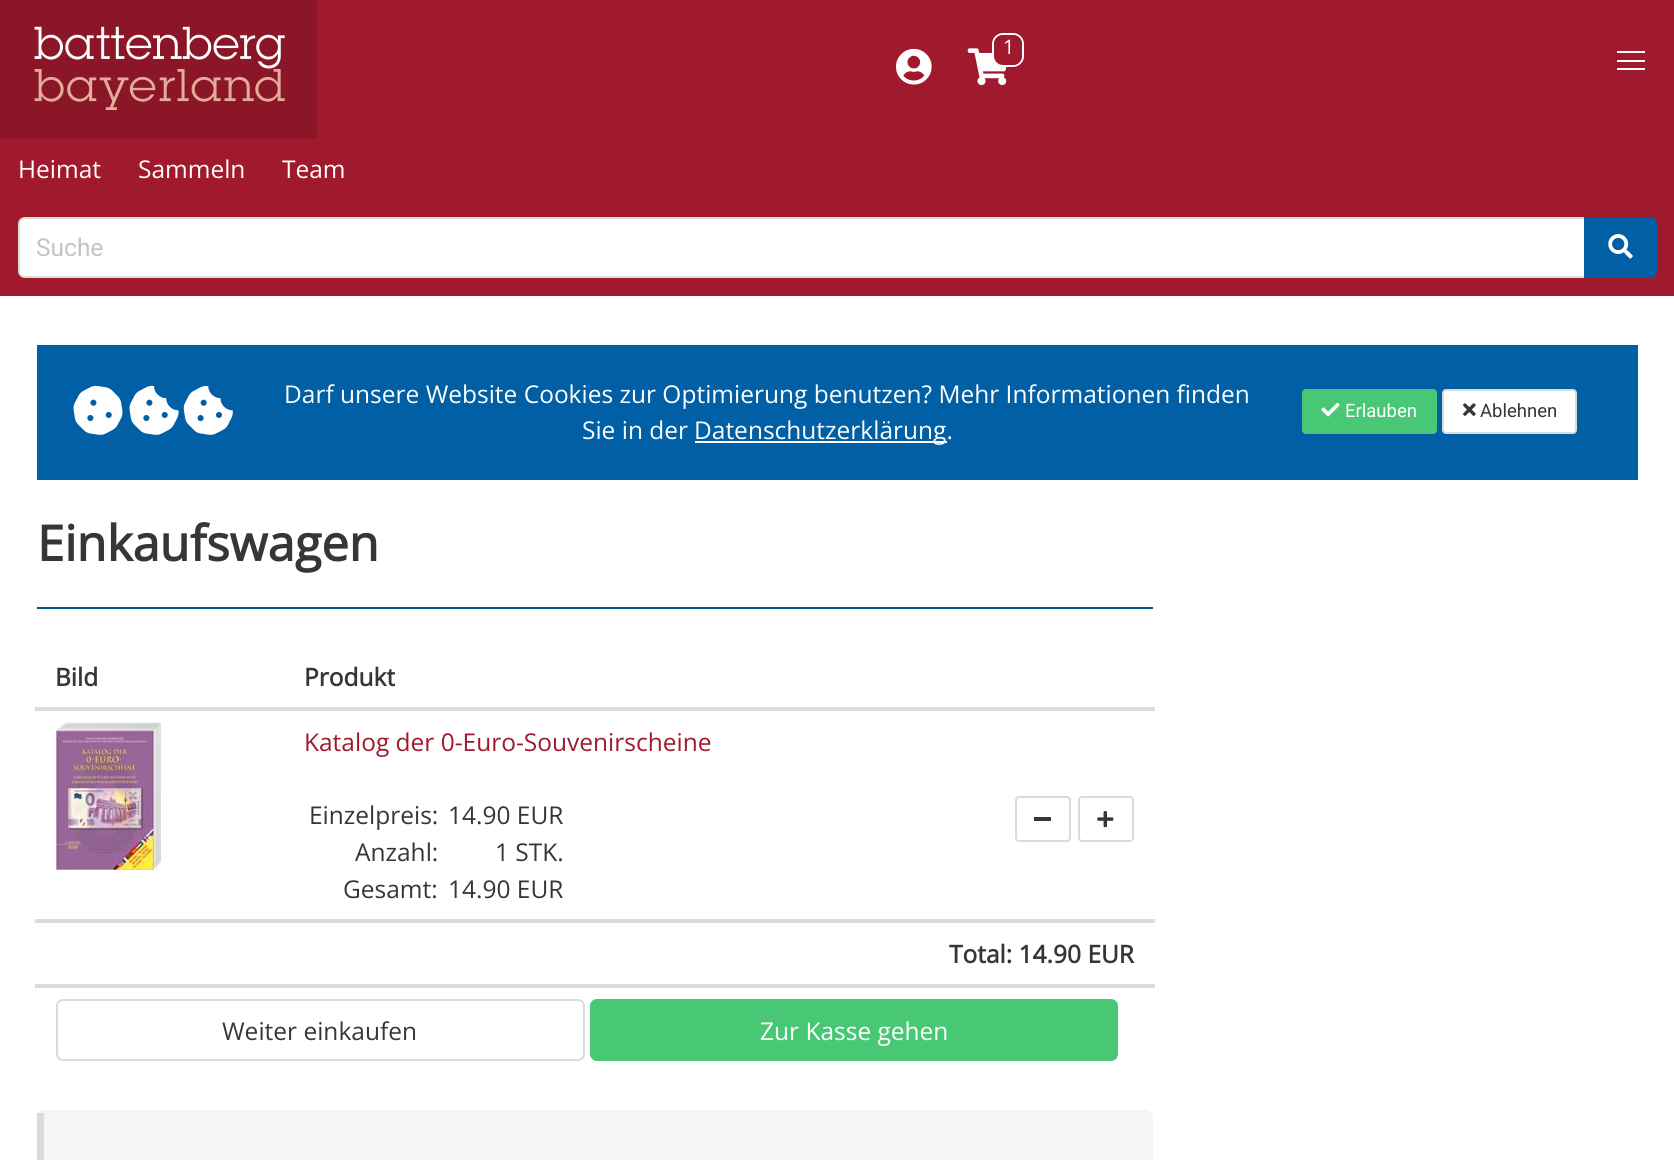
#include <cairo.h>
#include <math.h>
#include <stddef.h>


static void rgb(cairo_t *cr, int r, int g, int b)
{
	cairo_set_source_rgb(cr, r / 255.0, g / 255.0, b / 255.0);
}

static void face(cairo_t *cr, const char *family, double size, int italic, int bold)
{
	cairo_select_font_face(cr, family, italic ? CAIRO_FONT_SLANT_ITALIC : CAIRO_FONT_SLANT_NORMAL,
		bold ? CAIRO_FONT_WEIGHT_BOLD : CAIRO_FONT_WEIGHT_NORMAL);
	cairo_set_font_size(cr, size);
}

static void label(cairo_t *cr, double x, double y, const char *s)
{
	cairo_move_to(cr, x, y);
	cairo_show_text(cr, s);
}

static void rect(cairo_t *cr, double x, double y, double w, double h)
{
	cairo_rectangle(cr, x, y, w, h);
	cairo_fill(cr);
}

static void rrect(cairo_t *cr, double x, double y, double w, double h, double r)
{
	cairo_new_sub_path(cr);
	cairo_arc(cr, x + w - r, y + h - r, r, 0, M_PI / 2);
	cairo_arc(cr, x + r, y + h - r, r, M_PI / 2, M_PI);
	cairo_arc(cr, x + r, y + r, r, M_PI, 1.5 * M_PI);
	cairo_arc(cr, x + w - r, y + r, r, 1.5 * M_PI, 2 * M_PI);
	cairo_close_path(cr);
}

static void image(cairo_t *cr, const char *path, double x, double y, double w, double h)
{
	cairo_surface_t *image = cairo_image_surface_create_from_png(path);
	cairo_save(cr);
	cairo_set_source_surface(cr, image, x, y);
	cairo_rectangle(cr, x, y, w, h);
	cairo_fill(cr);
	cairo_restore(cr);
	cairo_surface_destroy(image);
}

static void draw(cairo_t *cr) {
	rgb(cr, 255, 255, 255);
	cairo_paint(cr);
	rgb(cr, 160, 25, 45);
	rect(cr, 0, 0, 1674, 296);
	rgb(cr, 138, 22, 39);
	rect(cr, 0, 0, 317, 138);
	image(cr, "image0.png", 34, 26, 251, 84);
	image(cr, "image1.png", 896, 48, 36, 37);
	image(cr, "image2.png", 967, 48, 40, 38);
	rrect(cr, 993, 34, 30, 32, 10);
	rgb(cr, 255, 255, 255);
	cairo_stroke(cr);
	rgb(cr, 160, 25, 45);
	rrect(cr, 994, 35, 28, 30, 9);
	cairo_fill(cr);
	face(cr, "Open Sans", 20, 0, 0);
	rgb(cr, 255, 255, 255);
	label(cr, 1003, 54, "1");
	rect(cr, 1617, 51, 28, 2);
	rect(cr, 1617, 60, 28, 2);
	rect(cr, 1617, 68, 28, 2);
	face(cr, "Open Sans", 24.5, 0, 0);
	label(cr, 18, 178, "Heimat");
	label(cr, 138, 178, "Sammeln");
	label(cr, 282, 178, "Team");
	cairo_new_path(cr);
	cairo_move_to(cr, 25, 218);
	cairo_line_to(cr, 1585, 218);
	cairo_line_to(cr, 1585, 277);
	cairo_line_to(cr, 25, 277);
	cairo_curve_to(cr, 21.5, 277, 19, 274.5, 19, 271);
	cairo_line_to(cr, 19, 224);
	cairo_curve_to(cr, 19, 220.5, 21.5, 218, 25, 218);
	cairo_close_path(cr);
	cairo_fill_preserve(cr);
	rgb(cr, 219, 219, 219);
	cairo_stroke(cr);
	face(cr, "Roboto", 24.5, 0, 0);
	rgb(cr, 195, 195, 195);
	label(cr, 36, 256, "Suche");
	rgb(cr, 0, 95, 165);
	cairo_new_path(cr);
	cairo_move_to(cr, 1584, 217);
	cairo_line_to(cr, 1650, 217);
	cairo_curve_to(cr, 1654, 217, 1657, 220, 1657, 224);
	cairo_line_to(cr, 1657, 271);
	cairo_curve_to(cr, 1657, 275, 1654, 278, 1650, 278);
	cairo_line_to(cr, 1584, 278);
	cairo_close_path(cr);
	cairo_fill(cr);
	image(cr, "image3.png", 1608, 234, 25, 25);
	rect(cr, 37, 345, 1601, 135);
	image(cr, "image4.png", 73, 385, 50, 50);
	image(cr, "image5.png", 129, 385, 50, 50);
	image(cr, "image6.png", 183, 385, 50, 50);
	face(cr, "Open Sans", 24.5, 0, 0);
	rgb(cr, 255, 255, 255);
	label(cr, 284, 403, "Darf unsere Website Cookies zur Optimierung benutzen? Mehr Informationen finden");
	label(cr, 582, 439, "Sie in der");
	rect(cr, 695, 441, 252, 2);
	label(cr, 694, 439, "Datenschutzerklärung.");
	rgb(cr, 72, 199, 116);
	rrect(cr, 1302, 389, 135, 45, 4);
	cairo_fill(cr);
	image(cr, "image7.png", 1321, 402, 19, 15);
	face(cr, "Roboto", 18.5, 0, 0);
	rgb(cr, 255, 255, 255);
	label(cr, 1345, 417, "Erlauben");
	rrect(cr, 1443, 390, 133, 43, 3);
	cairo_fill_preserve(cr);
	rgb(cr, 219, 219, 219);
	cairo_stroke(cr);
	image(cr, "image8.png", 1463, 403, 13, 13);
	rgb(cr, 54, 54, 54);
	label(cr, 1480, 417, "Ablehnen");
	face(cr, "Open Sans", 49, 0, 1);
	label(cr, 37, 561, "Einkaufswagen");
	rgb(cr, 1, 86, 133);
	rect(cr, 37, 607, 1116, 2);
	face(cr, "Open Sans", 24.5, 0, 1);
	rgb(cr, 54, 54, 54);
	label(cr, 55, 686, "Bild");
	rgb(cr, 219, 219, 219);
	rect(cr, 35, 707, 1120, 4);
	rgb(cr, 54, 54, 54);
	label(cr, 304, 686, "Produkt");
	image(cr, "image9.png", 56, 722, 105, 148);
	face(cr, "Open Sans", 24.5, 0, 0);
	rgb(cr, 160, 25, 45);
	label(cr, 304, 751, "Katalog der 0-Euro-Souvenirscheine");
	rgb(cr, 54, 54, 54);
	label(cr, 309, 824, "Einzelpreis:");
	label(cr, 448, 824, "14.90 EUR");
	label(cr, 355, 861, "Anzahl:");
	label(cr, 495, 861, "1 STK.");
	label(cr, 343, 898, "Gesamt:");
	label(cr, 448, 898, "14.90 EUR");
	rrect(cr, 1016, 797, 54, 44, 3);
	rgb(cr, 219, 219, 219);
	cairo_stroke(cr);
	rgb(cr, 54, 54, 54);
	rect(cr, 1034, 817, 17, 4);
	rrect(cr, 1079, 797, 54, 44, 3);
	rgb(cr, 219, 219, 219);
	cairo_stroke(cr);
	image(cr, "image10.png", 1097, 811, 17, 17);
	rect(cr, 35, 919, 1120, 4);
	face(cr, "Open Sans", 24.5, 0, 1);
	rgb(cr, 54, 54, 54);
	label(cr, 949, 963, "Total: 14.90 EUR");
	rgb(cr, 219, 219, 219);
	rect(cr, 35, 984, 1120, 4);
	rrect(cr, 57, 1000, 527, 60, 6);
	cairo_stroke(cr);
	face(cr, "Open Sans", 24.5, 0, 0);
	rgb(cr, 54, 54, 54);
	label(cr, 222, 1040, "Weiter einkaufen");
	rgb(cr, 72, 199, 116);
	rrect(cr, 590, 999, 528, 62, 7);
	cairo_fill(cr);
	rgb(cr, 255, 255, 255);
	label(cr, 760, 1040, "Zur Kasse gehen");
	rgb(cr, 245, 245, 245);
	rrect(cr, 37, 1110, 1116, 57, 7);
	cairo_fill(cr);
	rgb(cr, 219, 219, 219);
	rect(cr, 37, 1113, 7, 47);
}

int main(void) {
	cairo_surface_t *surface = cairo_image_surface_create(CAIRO_FORMAT_RGB24, 1674, 1160);
	cairo_t *cr = cairo_create(surface);
	cairo_font_options_t *options = cairo_font_options_create();
	cairo_font_options_set_hint_metrics(options, CAIRO_HINT_METRICS_OFF);
	cairo_font_options_set_hint_style(options, CAIRO_HINT_STYLE_NONE);
	cairo_set_font_options(cr, options);
	cairo_set_miter_limit(cr, 4);
	draw(cr);
	cairo_surface_write_to_png(surface, "render.png");
	cairo_font_options_destroy(options);
	cairo_destroy(cr);
	cairo_surface_destroy(surface);
	return 0;
}
